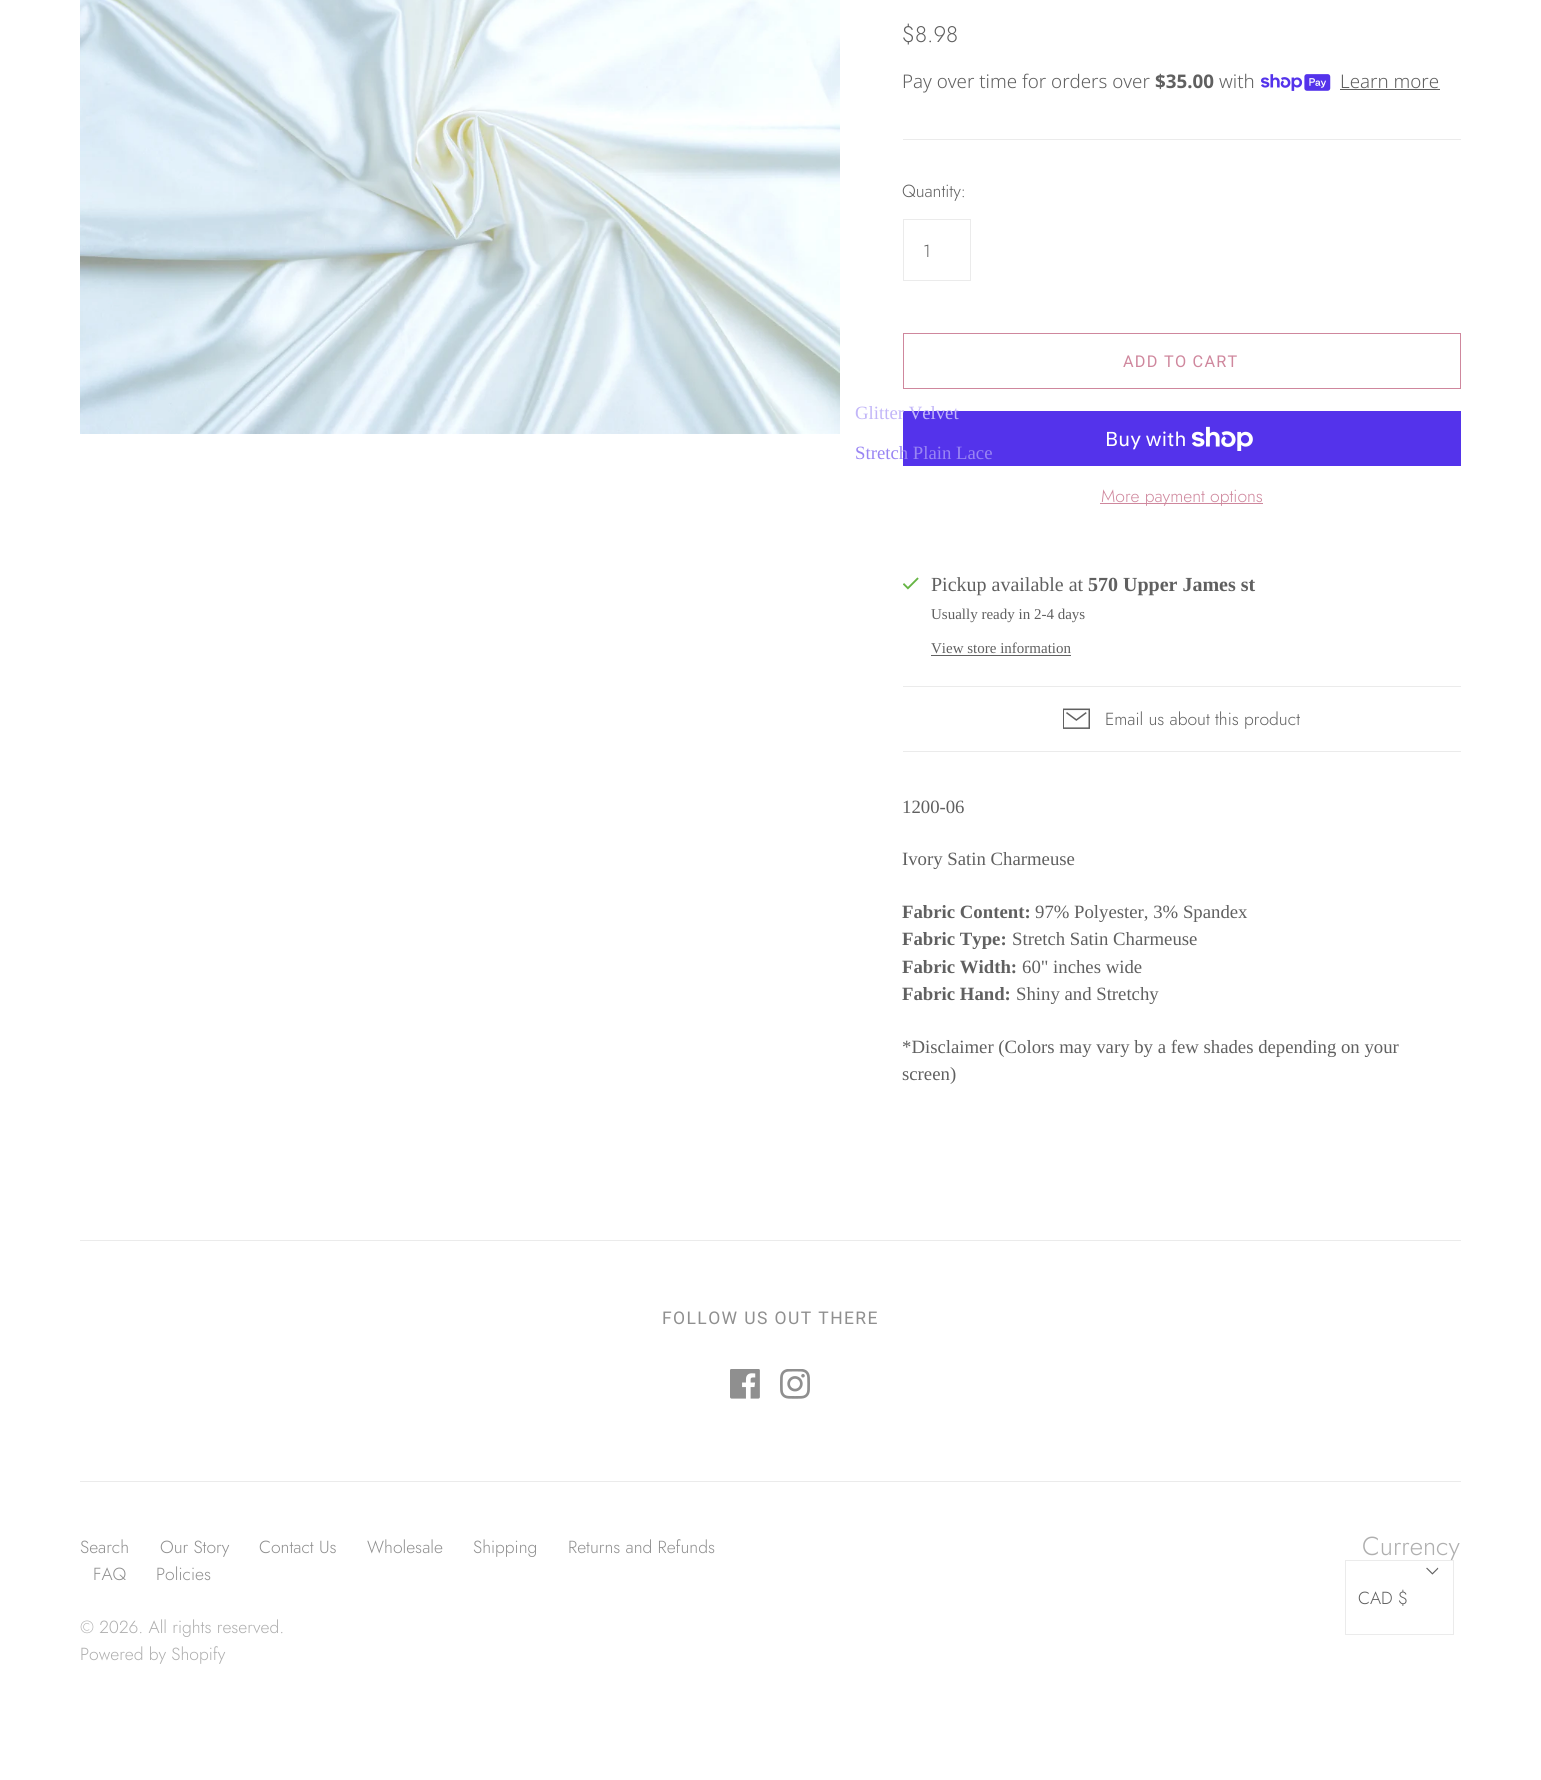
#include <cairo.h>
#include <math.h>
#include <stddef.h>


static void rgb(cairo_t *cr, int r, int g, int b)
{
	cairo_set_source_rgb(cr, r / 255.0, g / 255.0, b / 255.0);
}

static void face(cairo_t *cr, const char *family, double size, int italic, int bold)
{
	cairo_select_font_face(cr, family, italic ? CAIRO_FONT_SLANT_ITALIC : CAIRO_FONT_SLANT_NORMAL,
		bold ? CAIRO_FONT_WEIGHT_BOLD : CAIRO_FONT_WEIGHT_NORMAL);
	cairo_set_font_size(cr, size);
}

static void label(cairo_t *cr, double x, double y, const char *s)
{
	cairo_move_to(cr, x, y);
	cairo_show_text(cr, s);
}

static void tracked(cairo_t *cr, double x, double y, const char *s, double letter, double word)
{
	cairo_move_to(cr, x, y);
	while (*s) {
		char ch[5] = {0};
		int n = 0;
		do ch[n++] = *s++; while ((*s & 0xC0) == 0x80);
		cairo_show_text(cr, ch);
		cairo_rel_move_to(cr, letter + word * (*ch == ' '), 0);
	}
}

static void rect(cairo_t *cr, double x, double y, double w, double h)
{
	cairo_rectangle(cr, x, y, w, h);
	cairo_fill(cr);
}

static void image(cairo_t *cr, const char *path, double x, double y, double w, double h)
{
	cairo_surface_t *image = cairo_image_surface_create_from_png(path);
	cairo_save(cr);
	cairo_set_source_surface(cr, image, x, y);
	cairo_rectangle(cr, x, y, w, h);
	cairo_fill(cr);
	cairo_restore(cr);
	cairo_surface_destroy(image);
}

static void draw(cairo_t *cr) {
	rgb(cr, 255, 255, 255);
	cairo_paint(cr);
	image(cr, "image0.png", 80, 0, 760, 434);
	face(cr, "Jost Light", 22.5, 0, 0);
	rgb(cr, 96, 96, 96);
	label(cr, 902, 42, "$8.98");
	face(cr, "Noto Sans Light", 18.75, 0, 0);
	label(cr, 902, 88, "Pay over time for orders over");
	face(cr, "Noto Sans", 18.75, 0, 1);
	label(cr, 1155, 88, "$35.00");
	face(cr, "Noto Sans Light", 18.75, 0, 0);
	label(cr, 1219, 88, "with");
	image(cr, "image1.png", 1261, 74, 70, 17);
	label(cr, 1340, 88, "Learn more");
	rect(cr, 1340, 89, 100, 1);
	rgb(cr, 235, 235, 235);
	rect(cr, 903, 139, 558, 1);
	face(cr, "Jost Light", 17.5, 0, 0);
	rgb(cr, 96, 96, 96);
	label(cr, 902, 197, "Quantity:");
	cairo_rectangle(cr, 903.5, 219.5, 67, 61);
	rgb(cr, 235, 235, 235);
	cairo_set_line_width(cr, 1);
	cairo_stroke(cr);
	rgb(cr, 96, 96, 96);
	label(cr, 923, 257, "1");
	cairo_rectangle(cr, 903.5, 333.5, 557, 55);
	rgb(cr, 207, 135, 157);
	cairo_stroke(cr);
	face(cr, "Roboto", 16.25, 0, 0);
	tracked(cr, 1123, 367, "ADD TO CART", 1.25, 0);
	rgb(cr, 84, 51, 235);
	rect(cr, 903, 411, 558, 55);
	face(cr, "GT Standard", 20, 0, 0);
	rgb(cr, 255, 255, 255);
	label(cr, 1105, 446, "Buy with");
	image(cr, "image2.png", 1191, 426, 62, 25);
	rgb(cr, 207, 135, 157);
	rect(cr, 1100, 503, 163, 1);
	face(cr, "Jost Light", 17.5, 0, 0);
	label(cr, 1101, 502, "More payment options");
	image(cr, "image3.png", 903, 577, 16, 13);
	face(cr, "Liberation Serif", 20, 0, 0);
	rgb(cr, 96, 96, 96);
	label(cr, 931, 591, "Pickup available at");
	face(cr, "Liberation Serif", 20, 0, 1);
	label(cr, 1088, 591, "570 Upper James st");
	face(cr, "Liberation Serif", 15, 0, 0);
	label(cr, 931, 619, "Usually ready in 2-4 days");
	label(cr, 931, 653, "View store information");
	rect(cr, 931, 655, 140, 1);
	rgb(cr, 235, 235, 235);
	rect(cr, 903, 686, 558, 1);
	rect(cr, 903, 751, 558, 1);
	image(cr, "image4.png", 1063, 708, 27, 21);
	face(cr, "Jost Light", 17.5, 0, 0);
	rgb(cr, 96, 96, 96);
	label(cr, 1105, 725, "Email us about this product");
	face(cr, "Liberation Serif", 18.75, 0, 0);
	label(cr, 902, 813, "1200-06");
	label(cr, 902, 865, "Ivory Satin Charmeuse");
	face(cr, "Liberation Serif", 18.75, 0, 1);
	label(cr, 902, 918, "Fabric Content:");
	face(cr, "Liberation Serif", 18.75, 0, 0);
	label(cr, 1035, 918, "97% Polyester, 3% Spandex");
	face(cr, "Liberation Serif", 18.75, 0, 1);
	label(cr, 902, 945, "Fabric Type:");
	face(cr, "Liberation Serif", 18.75, 0, 0);
	label(cr, 1012, 945, "Stretch Satin Charmeuse");
	face(cr, "Liberation Serif", 18.75, 0, 1);
	label(cr, 902, 973, "Fabric Width:");
	face(cr, "Liberation Serif", 18.75, 0, 0);
	label(cr, 1022, 973, "60\" inches wide");
	face(cr, "Liberation Serif", 18.75, 0, 1);
	label(cr, 902, 1000, "Fabric Hand:");
	face(cr, "Liberation Serif", 18.75, 0, 0);
	label(cr, 1016, 1000, "Shiny and Stretchy");
	label(cr, 902, 1053, "*Disclaimer (Colors may vary by a few shades depending on your");
	label(cr, 902, 1080, "screen)");
	rgb(cr, 194, 182, 248);
	label(cr, 855, 419, "Glitter Velvet");
	rgb(cr, 153, 133, 243);
	label(cr, 855, 459, "Stretch Plain Lace");
	rgb(cr, 235, 235, 235);
	rect(cr, 80, 1240, 1381, 1);
	rect(cr, 80, 1481, 1381, 1);
	face(cr, "Roboto", 17.5, 0, 0);
	rgb(cr, 143, 143, 143);
	tracked(cr, 662, 1324, "FOLLOW US OUT THERE", 1.4, 0);
	image(cr, "image5.png", 730, 1369, 30, 30);
	image(cr, "image6.png", 780, 1369, 30, 30);
	face(cr, "Jost Light", 17.5, 0, 0);
	label(cr, 80, 1553, "Search");
	label(cr, 160, 1553, "Our Story");
	label(cr, 259, 1553, "Contact Us");
	label(cr, 367, 1553, "Wholesale");
	label(cr, 473, 1553, "Shipping");
	label(cr, 568, 1553, "Returns and Refunds");
	label(cr, 93, 1580, "FAQ");
	label(cr, 156, 1580, "Policies");
	rgb(cr, 175, 175, 175);
	label(cr, 80, 1633, "© 2026. All rights reserved.");
	label(cr, 80, 1660, "Powered by Shopify");
	face(cr, "Jost Light", 26, 0, 0);
	label(cr, 1362, 1555, "Currency");
	cairo_rectangle(cr, 1345.5, 1560.5, 108, 74);
	rgb(cr, 235, 235, 235);
	cairo_stroke(cr);
	image(cr, "image7.png", 1426, 1567, 13, 8);
	face(cr, "Jost Light", 17.5, 0, 0);
	rgb(cr, 96, 96, 96);
	label(cr, 1358, 1604, "CAD $");
}

int main(void) {
	cairo_surface_t *surface = cairo_image_surface_create(CAIRO_FORMAT_RGB24, 1541, 1780);
	cairo_t *cr = cairo_create(surface);
	cairo_font_options_t *options = cairo_font_options_create();
	cairo_font_options_set_hint_metrics(options, CAIRO_HINT_METRICS_OFF);
	cairo_font_options_set_hint_style(options, CAIRO_HINT_STYLE_NONE);
	cairo_set_font_options(cr, options);
	cairo_set_miter_limit(cr, 4);
	draw(cr);
	cairo_surface_write_to_png(surface, "render.png");
	cairo_font_options_destroy(options);
	cairo_destroy(cr);
	cairo_surface_destroy(surface);
	return 0;
}
